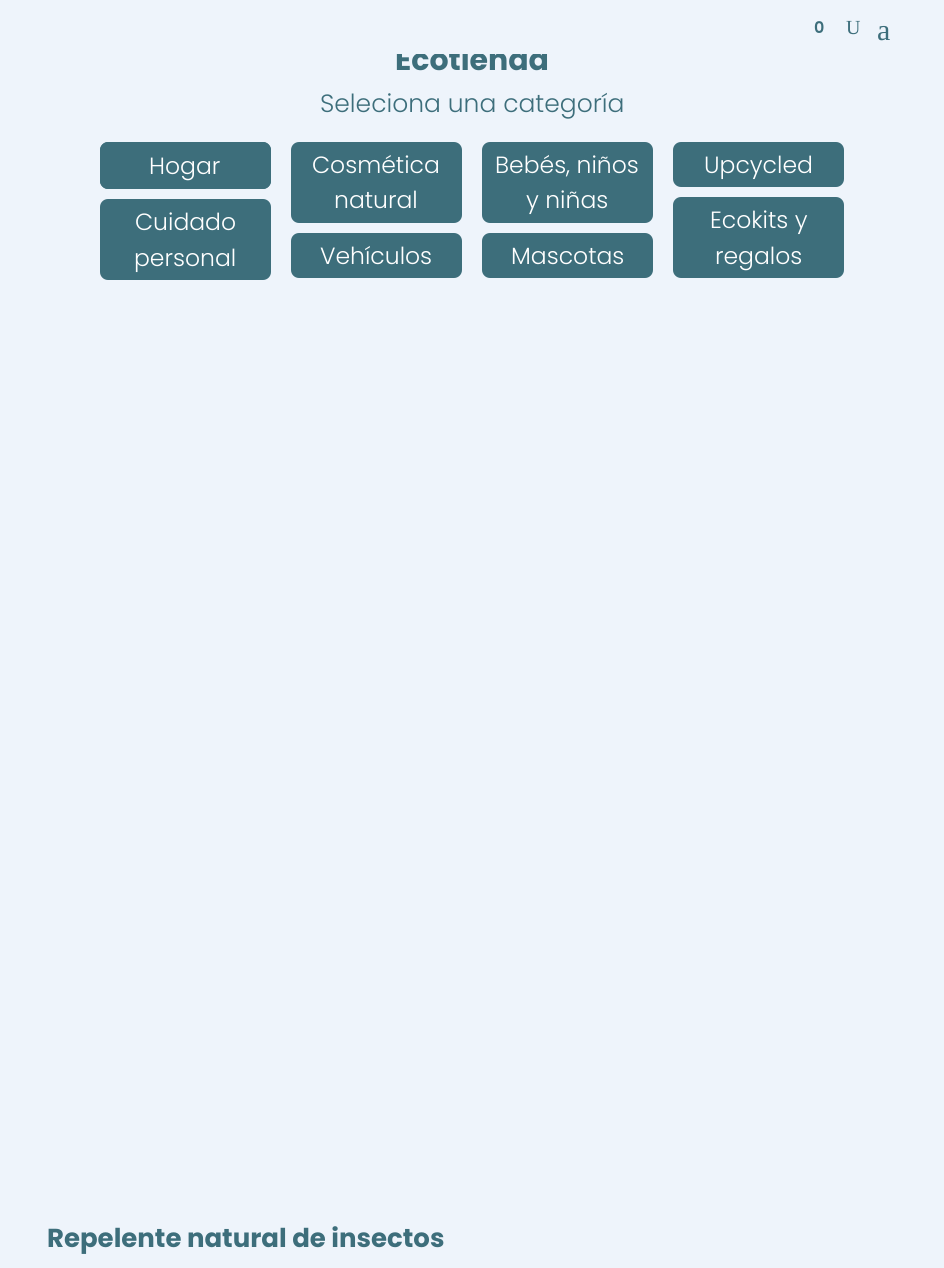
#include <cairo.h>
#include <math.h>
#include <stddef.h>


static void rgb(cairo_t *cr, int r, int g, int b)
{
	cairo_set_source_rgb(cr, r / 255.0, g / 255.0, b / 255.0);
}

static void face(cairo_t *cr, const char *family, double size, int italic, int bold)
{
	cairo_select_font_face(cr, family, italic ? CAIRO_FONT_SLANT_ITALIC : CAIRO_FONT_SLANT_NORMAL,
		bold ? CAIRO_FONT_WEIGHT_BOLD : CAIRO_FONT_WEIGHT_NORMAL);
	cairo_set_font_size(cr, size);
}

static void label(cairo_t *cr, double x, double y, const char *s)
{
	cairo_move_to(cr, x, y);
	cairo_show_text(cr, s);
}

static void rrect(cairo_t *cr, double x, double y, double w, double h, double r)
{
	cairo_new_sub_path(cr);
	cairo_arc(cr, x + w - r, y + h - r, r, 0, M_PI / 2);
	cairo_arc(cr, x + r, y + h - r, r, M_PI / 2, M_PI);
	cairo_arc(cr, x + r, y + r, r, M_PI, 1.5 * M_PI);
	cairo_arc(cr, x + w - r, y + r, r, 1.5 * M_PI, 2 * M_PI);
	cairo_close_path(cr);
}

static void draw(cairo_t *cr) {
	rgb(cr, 238, 244, 251);
	cairo_paint(cr);
	face(cr, "Poppins SemiBold", 16, 0, 0);
	rgb(cr, 61, 110, 123);
	label(cr, 814, 33, "0");
	face(cr, "Liberation Serif", 20, 0, 0);
	label(cr, 846, 34, "U");
	face(cr, "Liberation Serif", 30, 0, 0);
	label(cr, 877, 40, "a");
	cairo_save(cr);
	cairo_new_path(cr);
	cairo_move_to(cr, 47, 54);
	cairo_line_to(cr, 897, 54);
	cairo_line_to(cr, 897, 281);
	cairo_curve_to(cr, 897, 292, 888, 301, 877, 301);
	cairo_line_to(cr, 67, 301);
	cairo_curve_to(cr, 56, 301, 47, 292, 47, 281);
	cairo_close_path(cr);
	cairo_clip(cr);
	face(cr, "Poppins", 30, 0, 1);
	label(cr, 395, 70, "Ecotienda");
	cairo_restore(cr);
	face(cr, "Poppins Light", 25, 0, 0);
	label(cr, 320, 112, "Seleciona una categoría");
	rrect(cr, 100, 142, 171, 47, 8);
	cairo_fill(cr);
	cairo_new_path(cr);
	cairo_move_to(cr, 108, 142);
	cairo_line_to(cr, 263, 142);
	cairo_curve_to(cr, 267, 142, 271, 146, 271, 150);
	cairo_line_to(cr, 271, 181);
	cairo_curve_to(cr, 271, 185, 267, 189, 263, 189);
	cairo_line_to(cr, 108, 189);
	cairo_curve_to(cr, 104, 189, 100, 185, 100, 181);
	cairo_line_to(cr, 100, 150);
	cairo_curve_to(cr, 100, 146, 104, 142, 108, 142);
	cairo_close_path(cr);
	cairo_fill(cr);
	face(cr, "Poppins Light", 23.5, 0, 0);
	rgb(cr, 255, 255, 255);
	label(cr, 149, 174, "Hogar");
	rgb(cr, 61, 110, 123);
	rrect(cr, 100, 199, 171, 81, 8);
	cairo_fill(cr);
	rgb(cr, 255, 255, 255);
	label(cr, 135, 230, "Cuidado");
	label(cr, 134, 266, "personal");
	rgb(cr, 61, 110, 123);
	rrect(cr, 291, 142, 171, 81, 8);
	cairo_fill(cr);
	rgb(cr, 255, 255, 255);
	label(cr, 312, 173, "Cosmética");
	label(cr, 334, 208, "natural");
	rgb(cr, 61, 110, 123);
	rrect(cr, 291, 233, 171, 45, 8);
	cairo_fill(cr);
	rgb(cr, 255, 255, 255);
	label(cr, 320, 264, "Vehículos");
	rgb(cr, 61, 110, 123);
	rrect(cr, 482, 142, 171, 81, 8);
	cairo_fill(cr);
	rgb(cr, 255, 255, 255);
	label(cr, 495, 173, "Bebés, niños");
	label(cr, 526, 208, "y niñas");
	rgb(cr, 61, 110, 123);
	rrect(cr, 482, 233, 171, 45, 8);
	cairo_fill(cr);
	rgb(cr, 255, 255, 255);
	label(cr, 511, 264, "Mascotas");
	rgb(cr, 61, 110, 123);
	rrect(cr, 673, 142, 171, 45, 8);
	cairo_fill(cr);
	rgb(cr, 255, 255, 255);
	label(cr, 704, 173, "Upcycled");
	rgb(cr, 61, 110, 123);
	rrect(cr, 673, 197, 171, 81, 8);
	cairo_fill(cr);
	rgb(cr, 255, 255, 255);
	label(cr, 710, 228, "Ecokits y");
	label(cr, 715, 264, "regalos");
	face(cr, "Poppins", 26, 0, 1);
	rgb(cr, 61, 110, 123);
	label(cr, 47, 1247, "Repelente natural de insectos");
}

int main(void) {
	cairo_surface_t *surface = cairo_image_surface_create(CAIRO_FORMAT_RGB24, 944, 1268);
	cairo_t *cr = cairo_create(surface);
	cairo_font_options_t *options = cairo_font_options_create();
	cairo_font_options_set_hint_metrics(options, CAIRO_HINT_METRICS_OFF);
	cairo_font_options_set_hint_style(options, CAIRO_HINT_STYLE_NONE);
	cairo_set_font_options(cr, options);
	cairo_set_miter_limit(cr, 4);
	draw(cr);
	cairo_surface_write_to_png(surface, "render.png");
	cairo_font_options_destroy(options);
	cairo_destroy(cr);
	cairo_surface_destroy(surface);
	return 0;
}
